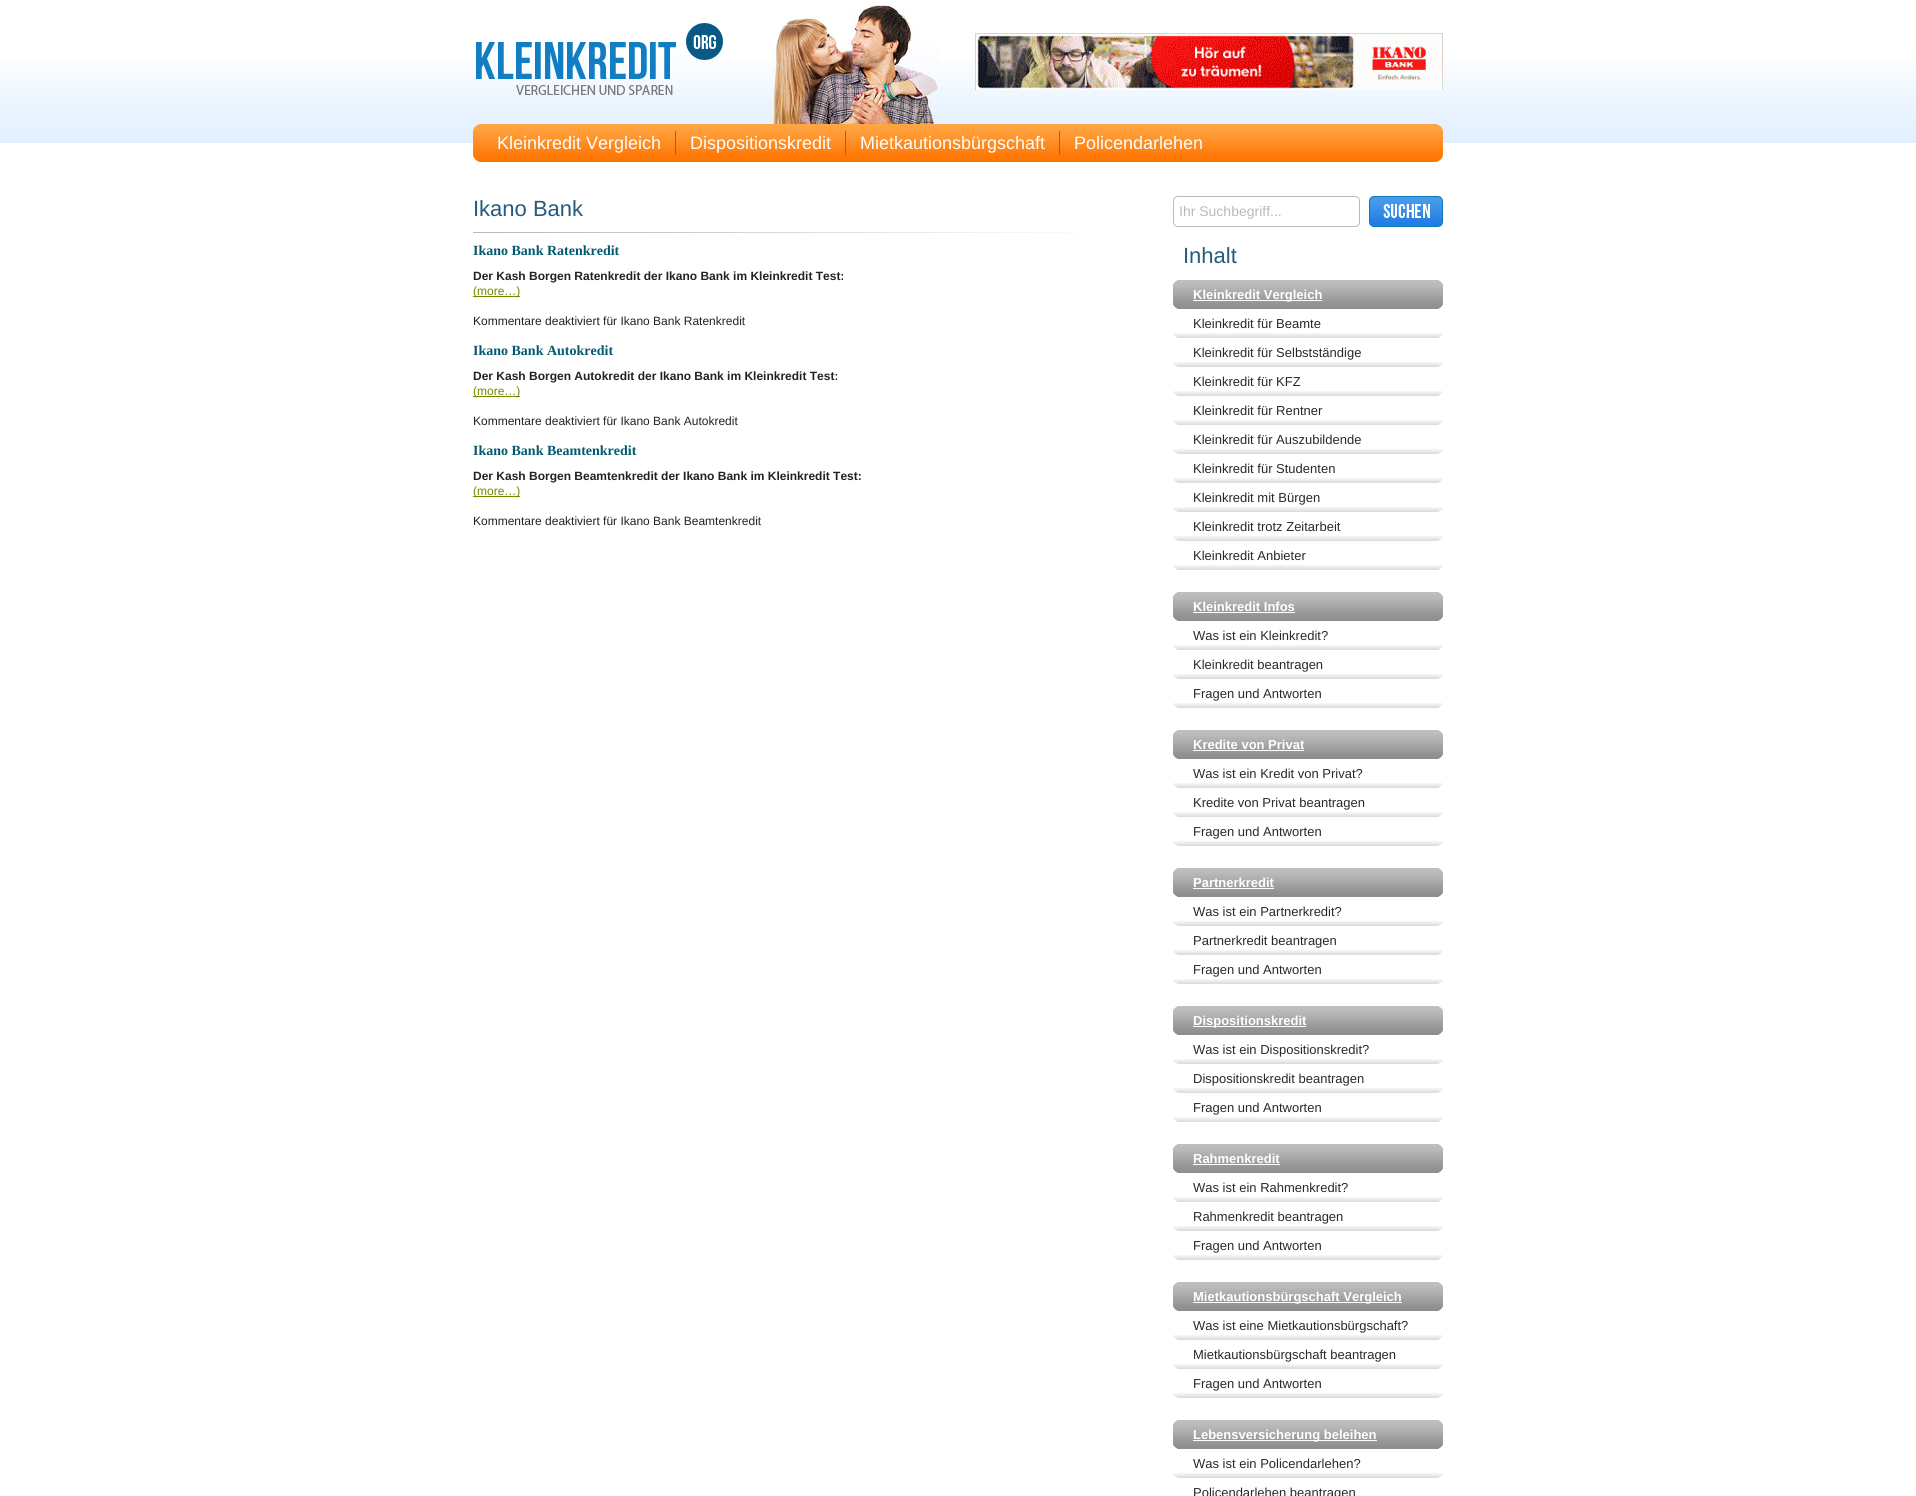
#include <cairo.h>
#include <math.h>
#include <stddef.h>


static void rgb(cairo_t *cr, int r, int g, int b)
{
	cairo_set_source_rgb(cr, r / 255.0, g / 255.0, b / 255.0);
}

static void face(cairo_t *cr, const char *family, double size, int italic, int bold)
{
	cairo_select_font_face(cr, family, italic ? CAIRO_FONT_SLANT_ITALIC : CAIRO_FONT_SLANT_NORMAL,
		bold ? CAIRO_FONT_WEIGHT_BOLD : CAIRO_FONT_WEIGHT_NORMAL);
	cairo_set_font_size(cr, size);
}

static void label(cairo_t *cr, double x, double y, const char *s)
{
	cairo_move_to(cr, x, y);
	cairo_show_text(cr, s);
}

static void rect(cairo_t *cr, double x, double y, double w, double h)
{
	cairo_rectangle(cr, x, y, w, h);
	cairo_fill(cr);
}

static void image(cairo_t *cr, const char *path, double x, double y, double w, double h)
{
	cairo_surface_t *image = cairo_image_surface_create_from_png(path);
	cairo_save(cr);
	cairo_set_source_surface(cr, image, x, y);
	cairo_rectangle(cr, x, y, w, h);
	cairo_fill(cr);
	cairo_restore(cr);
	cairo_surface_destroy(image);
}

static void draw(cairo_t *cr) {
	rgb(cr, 255, 255, 255);
	cairo_paint(cr);
	image(cr, "image0.png", 0, 61, 1916, 82);
	image(cr, "image1.png", 773, 2, 167, 122);
	image(cr, "image2.png", 476, 23, 247, 72);
	image(cr, "image3.png", 975, 33, 468, 57);
	image(cr, "image4.png", 473, 124, 970, 38);
	rgb(cr, 192, 88, 0);
	rect(cr, 675, 131, 1, 24);
	face(cr, "Liberation Sans", 18, 0, 0);
	rgb(cr, 255, 255, 255);
	label(cr, 497, 149, "Kleinkredit Vergleich");
	rgb(cr, 192, 88, 0);
	rect(cr, 845, 131, 1, 24);
	rgb(cr, 255, 255, 255);
	label(cr, 690, 149, "Dispositionskredit");
	rgb(cr, 192, 88, 0);
	rect(cr, 1059, 131, 1, 24);
	rgb(cr, 255, 255, 255);
	label(cr, 860, 149, "Mietkautionsbürgschaft");
	label(cr, 1074, 149, "Policendarlehen");
	image(cr, "image5.png", 473, 232, 605, 1);
	face(cr, "Liberation Sans", 22, 0, 0);
	rgb(cr, 39, 90, 123);
	label(cr, 473, 216, "Ikano Bank");
	face(cr, "Liberation Serif", 14, 0, 1);
	rgb(cr, 1, 90, 112);
	label(cr, 473, 255, "Ikano Bank Ratenkredit");
	face(cr, "Liberation Sans", 12, 0, 1);
	rgb(cr, 34, 34, 34);
	label(cr, 473, 280, "Der Kash Borgen Ratenkredit der Ikano Bank im Kleinkredit Test:");
	rgb(cr, 116, 137, 0);
	rect(cr, 473, 296, 47, 1);
	face(cr, "Liberation Sans", 12, 0, 0);
	label(cr, 473, 295, "(more…)");
	rgb(cr, 34, 34, 34);
	label(cr, 473, 325, "Kommentare deaktiviert für Ikano Bank Ratenkredit");
	face(cr, "Liberation Serif", 14, 0, 1);
	rgb(cr, 1, 90, 112);
	label(cr, 473, 355, "Ikano Bank Autokredit");
	face(cr, "Liberation Sans", 12, 0, 1);
	rgb(cr, 34, 34, 34);
	label(cr, 473, 380, "Der Kash Borgen Autokredit der Ikano Bank im Kleinkredit Test:");
	rgb(cr, 116, 137, 0);
	rect(cr, 473, 396, 47, 1);
	face(cr, "Liberation Sans", 12, 0, 0);
	label(cr, 473, 395, "(more…)");
	rgb(cr, 34, 34, 34);
	label(cr, 473, 425, "Kommentare deaktiviert für Ikano Bank Autokredit");
	face(cr, "Liberation Serif", 14, 0, 1);
	rgb(cr, 1, 90, 112);
	label(cr, 473, 455, "Ikano Bank Beamtenkredit");
	face(cr, "Liberation Sans", 12, 0, 1);
	rgb(cr, 34, 34, 34);
	label(cr, 473, 480, "Der Kash Borgen Beamtenkredit der Ikano Bank im Kleinkredit Test:");
	rgb(cr, 116, 137, 0);
	rect(cr, 473, 496, 47, 1);
	face(cr, "Liberation Sans", 12, 0, 0);
	label(cr, 473, 495, "(more…)");
	rgb(cr, 34, 34, 34);
	label(cr, 473, 525, "Kommentare deaktiviert für Ikano Bank Beamtenkredit");
	image(cr, "image6.png", 1173, 196, 187, 31);
	face(cr, "Liberation Sans", 14, 0, 0);
	rgb(cr, 186, 186, 186);
	label(cr, 1179, 216, "Ihr Suchbegriff...");
	image(cr, "image7.png", 1369, 196, 74, 31);
	face(cr, "Liberation Sans", 22, 0, 0);
	rgb(cr, 39, 90, 123);
	label(cr, 1183, 263, "Inhalt");
	image(cr, "image8.png", 1173, 280, 270, 29);
	rgb(cr, 255, 255, 255);
	rect(cr, 1193, 300, 129, 1);
	face(cr, "Liberation Sans", 13, 0, 1);
	label(cr, 1193, 299, "Kleinkredit Vergleich");
	image(cr, "image9.png", 1173, 333, 270, 5);
	face(cr, "Liberation Sans", 13, 0, 0);
	rgb(cr, 41, 41, 41);
	label(cr, 1193, 328, "Kleinkredit für Beamte");
	image(cr, "image9.png", 1173, 362, 270, 5);
	label(cr, 1193, 357, "Kleinkredit für Selbstständige");
	image(cr, "image9.png", 1173, 391, 270, 5);
	label(cr, 1193, 386, "Kleinkredit für KFZ");
	image(cr, "image9.png", 1173, 420, 270, 5);
	label(cr, 1193, 415, "Kleinkredit für Rentner");
	image(cr, "image9.png", 1173, 449, 270, 5);
	label(cr, 1193, 444, "Kleinkredit für Auszubildende");
	image(cr, "image9.png", 1173, 478, 270, 5);
	label(cr, 1193, 473, "Kleinkredit für Studenten");
	image(cr, "image9.png", 1173, 507, 270, 5);
	label(cr, 1193, 502, "Kleinkredit mit Bürgen");
	image(cr, "image9.png", 1173, 536, 270, 5);
	label(cr, 1193, 531, "Kleinkredit trotz Zeitarbeit");
	image(cr, "image9.png", 1173, 565, 270, 5);
	label(cr, 1193, 560, "Kleinkredit Anbieter");
	image(cr, "image8.png", 1173, 592, 270, 29);
	face(cr, "Liberation Sans", 13, 0, 1);
	rgb(cr, 255, 255, 255);
	label(cr, 1193, 611, "Kleinkredit Infos");
	rect(cr, 1193, 612, 102, 1);
	image(cr, "image9.png", 1173, 645, 270, 5);
	face(cr, "Liberation Sans", 13, 0, 0);
	rgb(cr, 41, 41, 41);
	label(cr, 1193, 640, "Was ist ein Kleinkredit?");
	image(cr, "image9.png", 1173, 674, 270, 5);
	label(cr, 1193, 669, "Kleinkredit beantragen");
	image(cr, "image9.png", 1173, 703, 270, 5);
	label(cr, 1193, 698, "Fragen und Antworten");
	image(cr, "image8.png", 1173, 730, 270, 29);
	face(cr, "Liberation Sans", 13, 0, 1);
	rgb(cr, 255, 255, 255);
	label(cr, 1193, 749, "Kredite von Privat");
	rect(cr, 1193, 750, 111, 1);
	image(cr, "image9.png", 1173, 783, 270, 5);
	face(cr, "Liberation Sans", 13, 0, 0);
	rgb(cr, 41, 41, 41);
	label(cr, 1193, 778, "Was ist ein Kredit von Privat?");
	image(cr, "image9.png", 1173, 812, 270, 5);
	label(cr, 1193, 807, "Kredite von Privat beantragen");
	image(cr, "image9.png", 1173, 841, 270, 5);
	label(cr, 1193, 836, "Fragen und Antworten");
	image(cr, "image8.png", 1173, 868, 270, 29);
	face(cr, "Liberation Sans", 13, 0, 1);
	rgb(cr, 255, 255, 255);
	label(cr, 1193, 887, "Partnerkredit");
	rect(cr, 1193, 888, 81, 1);
	image(cr, "image9.png", 1173, 921, 270, 5);
	face(cr, "Liberation Sans", 13, 0, 0);
	rgb(cr, 41, 41, 41);
	label(cr, 1193, 916, "Was ist ein Partnerkredit?");
	image(cr, "image9.png", 1173, 950, 270, 5);
	label(cr, 1193, 945, "Partnerkredit beantragen");
	image(cr, "image9.png", 1173, 979, 270, 5);
	label(cr, 1193, 974, "Fragen und Antworten");
	image(cr, "image8.png", 1173, 1006, 270, 29);
	rgb(cr, 255, 255, 255);
	rect(cr, 1193, 1026, 113, 1);
	face(cr, "Liberation Sans", 13, 0, 1);
	label(cr, 1193, 1025, "Dispositionskredit");
	image(cr, "image9.png", 1173, 1059, 270, 5);
	face(cr, "Liberation Sans", 13, 0, 0);
	rgb(cr, 41, 41, 41);
	label(cr, 1193, 1054, "Was ist ein Dispositionskredit?");
	image(cr, "image9.png", 1173, 1088, 270, 5);
	label(cr, 1193, 1083, "Dispositionskredit beantragen");
	image(cr, "image9.png", 1173, 1117, 270, 5);
	label(cr, 1193, 1112, "Fragen und Antworten");
	image(cr, "image8.png", 1173, 1144, 270, 29);
	face(cr, "Liberation Sans", 13, 0, 1);
	rgb(cr, 255, 255, 255);
	label(cr, 1193, 1163, "Rahmenkredit");
	rect(cr, 1193, 1164, 87, 1);
	image(cr, "image9.png", 1173, 1197, 270, 5);
	face(cr, "Liberation Sans", 13, 0, 0);
	rgb(cr, 41, 41, 41);
	label(cr, 1193, 1192, "Was ist ein Rahmenkredit?");
	image(cr, "image9.png", 1173, 1226, 270, 5);
	label(cr, 1193, 1221, "Rahmenkredit beantragen");
	image(cr, "image9.png", 1173, 1255, 270, 5);
	label(cr, 1193, 1250, "Fragen und Antworten");
	image(cr, "image8.png", 1173, 1282, 270, 29);
	rgb(cr, 255, 255, 255);
	rect(cr, 1193, 1302, 209, 1);
	face(cr, "Liberation Sans", 13, 0, 1);
	label(cr, 1193, 1301, "Mietkautionsbürgschaft Vergleich");
	image(cr, "image9.png", 1173, 1335, 270, 5);
	face(cr, "Liberation Sans", 13, 0, 0);
	rgb(cr, 41, 41, 41);
	label(cr, 1193, 1330, "Was ist eine Mietkautionsbürgschaft?");
	image(cr, "image9.png", 1173, 1364, 270, 5);
	label(cr, 1193, 1359, "Mietkautionsbürgschaft beantragen");
	image(cr, "image9.png", 1173, 1393, 270, 5);
	label(cr, 1193, 1388, "Fragen und Antworten");
	image(cr, "image8.png", 1173, 1420, 270, 29);
	rgb(cr, 255, 255, 255);
	rect(cr, 1193, 1440, 184, 1);
	face(cr, "Liberation Sans", 13, 0, 1);
	label(cr, 1193, 1439, "Lebensversicherung beleihen");
	image(cr, "image9.png", 1173, 1473, 270, 5);
	face(cr, "Liberation Sans", 13, 0, 0);
	rgb(cr, 41, 41, 41);
	label(cr, 1193, 1468, "Was ist ein Policendarlehen?");
	label(cr, 1193, 1497, "Policendarlehen beantragen");
}

int main(void) {
	cairo_surface_t *surface = cairo_image_surface_create(CAIRO_FORMAT_RGB24, 1916, 1496);
	cairo_t *cr = cairo_create(surface);
	cairo_font_options_t *options = cairo_font_options_create();
	cairo_font_options_set_hint_metrics(options, CAIRO_HINT_METRICS_OFF);
	cairo_font_options_set_hint_style(options, CAIRO_HINT_STYLE_NONE);
	cairo_set_font_options(cr, options);
	cairo_set_miter_limit(cr, 4);
	draw(cr);
	cairo_surface_write_to_png(surface, "render.png");
	cairo_font_options_destroy(options);
	cairo_destroy(cr);
	cairo_surface_destroy(surface);
	return 0;
}
